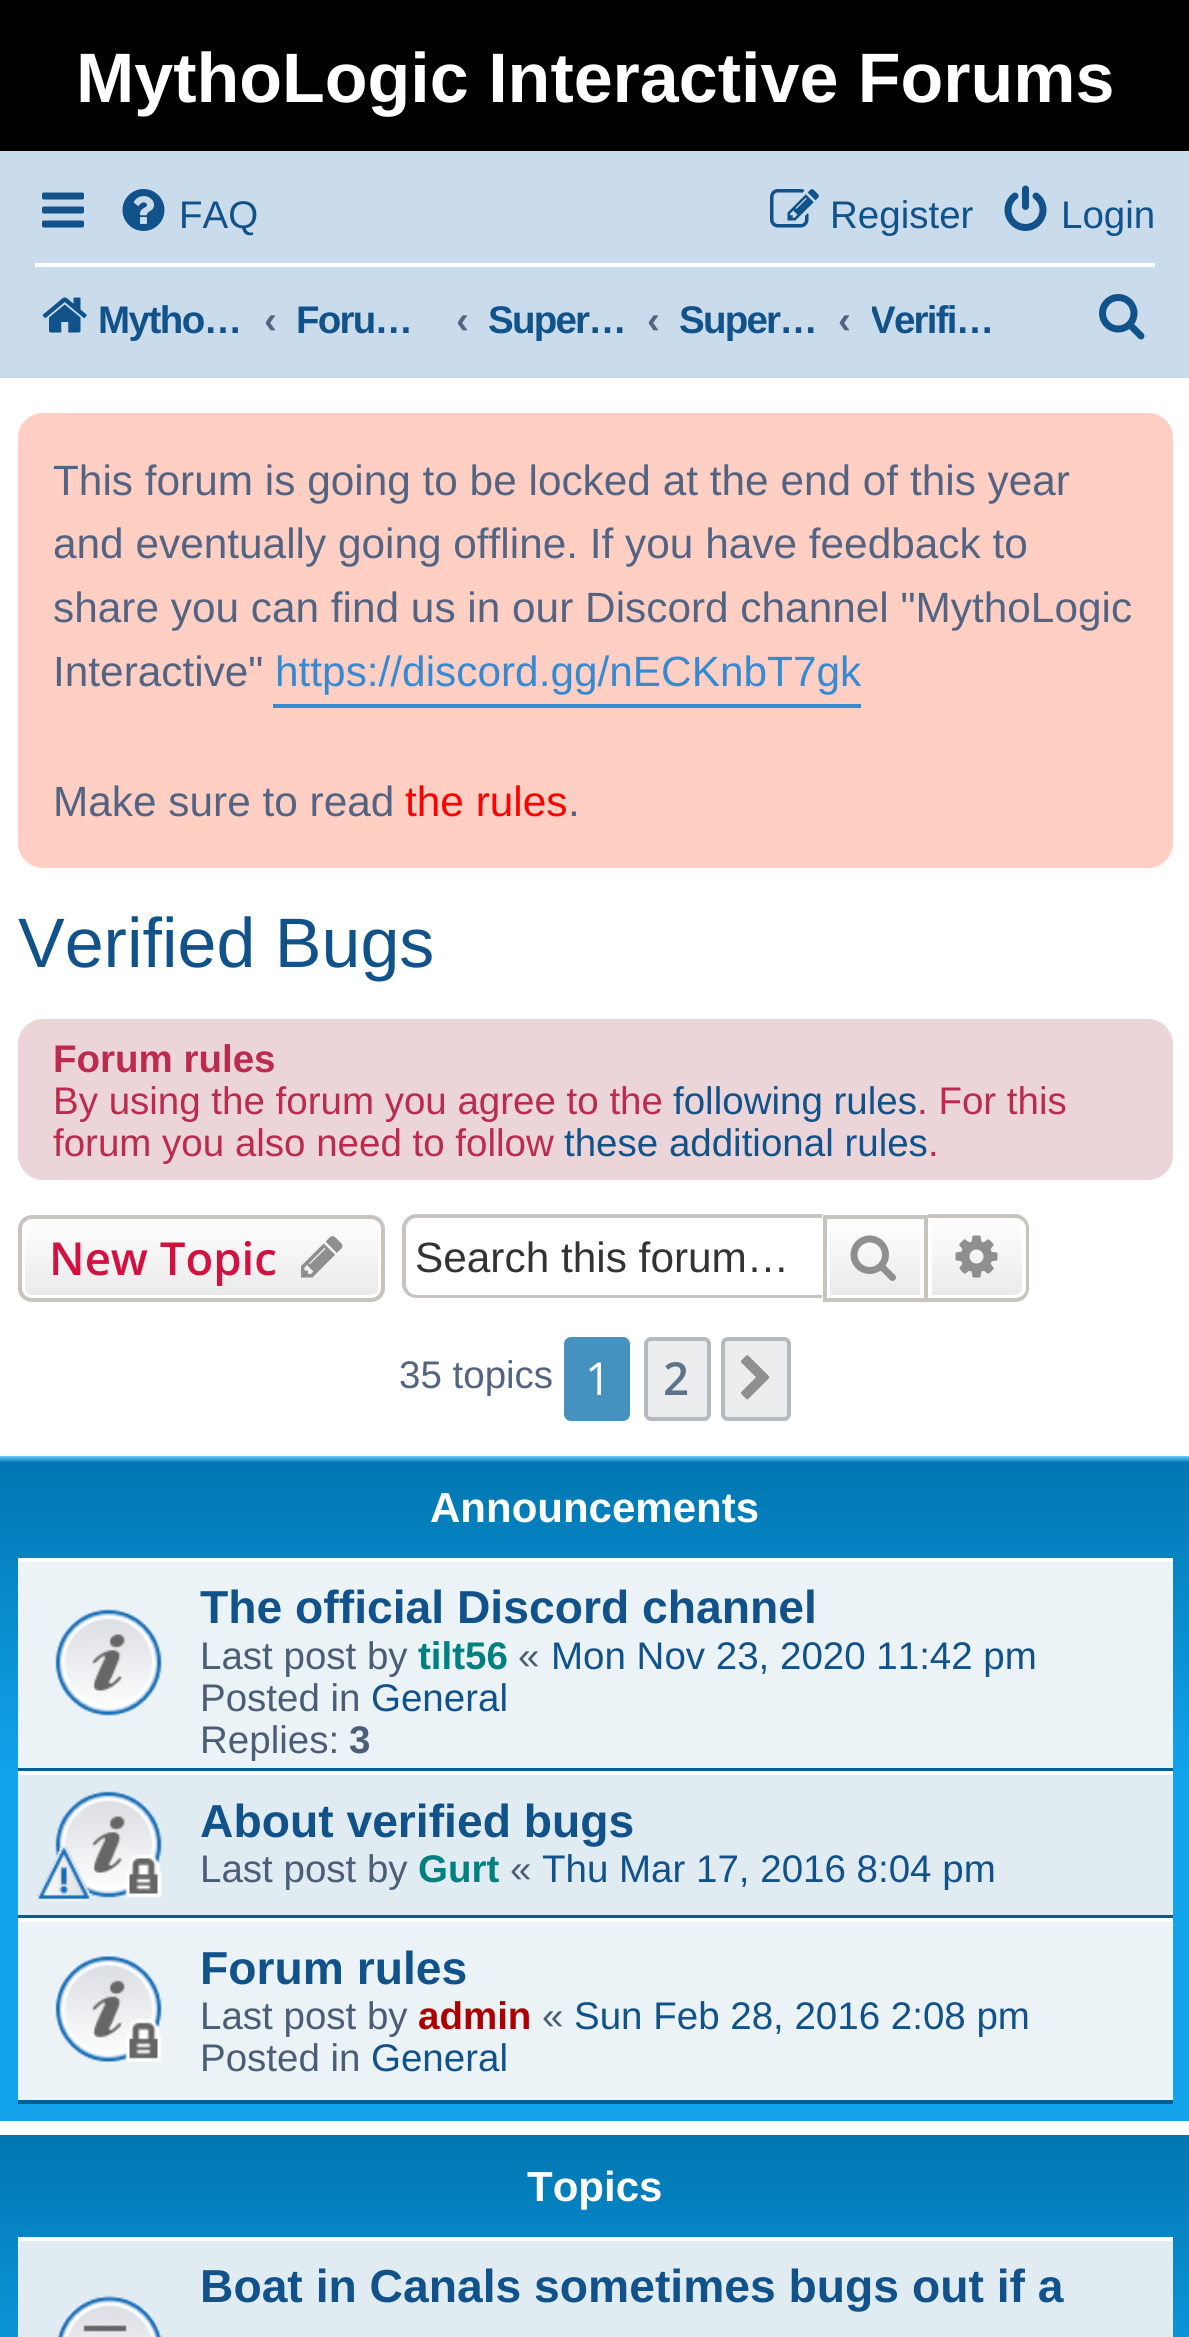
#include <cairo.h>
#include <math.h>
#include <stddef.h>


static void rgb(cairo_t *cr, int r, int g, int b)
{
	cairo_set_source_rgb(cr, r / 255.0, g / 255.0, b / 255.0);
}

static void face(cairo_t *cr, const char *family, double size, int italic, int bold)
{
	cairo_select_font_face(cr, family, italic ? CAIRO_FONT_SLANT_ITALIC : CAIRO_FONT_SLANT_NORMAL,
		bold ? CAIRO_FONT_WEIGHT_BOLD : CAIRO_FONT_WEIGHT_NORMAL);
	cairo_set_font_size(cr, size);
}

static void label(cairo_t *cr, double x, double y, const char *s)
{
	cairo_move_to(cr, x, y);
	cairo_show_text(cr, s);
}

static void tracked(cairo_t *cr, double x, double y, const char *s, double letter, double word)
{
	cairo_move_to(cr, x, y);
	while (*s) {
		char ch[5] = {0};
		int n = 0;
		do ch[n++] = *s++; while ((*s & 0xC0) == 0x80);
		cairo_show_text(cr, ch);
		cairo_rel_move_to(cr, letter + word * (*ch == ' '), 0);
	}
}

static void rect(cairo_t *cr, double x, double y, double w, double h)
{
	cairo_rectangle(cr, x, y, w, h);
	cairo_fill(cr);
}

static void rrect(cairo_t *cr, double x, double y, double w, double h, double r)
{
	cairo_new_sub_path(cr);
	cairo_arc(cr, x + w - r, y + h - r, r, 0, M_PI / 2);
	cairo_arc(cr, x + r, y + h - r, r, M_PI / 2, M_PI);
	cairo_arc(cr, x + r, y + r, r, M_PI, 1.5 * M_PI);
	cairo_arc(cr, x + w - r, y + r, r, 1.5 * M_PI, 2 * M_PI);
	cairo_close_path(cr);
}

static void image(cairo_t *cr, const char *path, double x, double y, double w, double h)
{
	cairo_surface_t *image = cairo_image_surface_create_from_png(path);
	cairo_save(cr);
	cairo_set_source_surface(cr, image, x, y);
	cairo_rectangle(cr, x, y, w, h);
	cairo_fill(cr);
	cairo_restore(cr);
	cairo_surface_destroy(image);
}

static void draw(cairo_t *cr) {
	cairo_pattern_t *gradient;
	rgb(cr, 255, 255, 255);
	cairo_paint(cr);
	rgb(cr, 0, 0, 0);
	rect(cr, 0, 0, 1189, 151);
	face(cr, "Liberation Sans", 70, 0, 1);
	rgb(cr, 255, 255, 255);
	label(cr, 76, 102, "MythoLogic Interactive Forums");
	rgb(cr, 202, 220, 235);
	rect(cr, 0, 151, 1189, 227);
	image(cr, "image0.png", 42, 192, 42, 36);
	image(cr, "image1.png", 122, 189, 43, 42);
	face(cr, "Liberation Sans", 38.5, 0, 0);
	rgb(cr, 16, 82, 137);
	label(cr, 179, 228, "FAQ");
	image(cr, "image2.png", 770, 189, 49, 39);
	label(cr, 830, 228, "Register");
	image(cr, "image3.png", 1004, 185, 43, 46);
	label(cr, 1061, 228, "Login");
	rgb(cr, 255, 255, 255);
	rect(cr, 35, 263, 1120, 4);
	image(cr, "image4.png", 42, 297, 45, 36);
	face(cr, "Liberation Sans", 38.5, 0, 1);
	rgb(cr, 16, 82, 137);
	tracked(cr, 98, 333, "Mytho…", -1.5, 0);
	rgb(cr, 83, 100, 130);
	label(cr, 264, 333, "‹");
	rgb(cr, 16, 82, 137);
	tracked(cr, 296, 333, "Foru…", -1.75, 0);
	rgb(cr, 83, 100, 130);
	label(cr, 456, 333, "‹");
	rgb(cr, 16, 82, 137);
	tracked(cr, 488, 333, "Super…", -1.75, 0);
	rgb(cr, 83, 100, 130);
	label(cr, 647, 333, "‹");
	rgb(cr, 16, 82, 137);
	tracked(cr, 679, 333, "Super…", -1.75, 0);
	rgb(cr, 83, 100, 130);
	label(cr, 838, 333, "‹");
	cairo_save(cr);
	cairo_rectangle(cr, 872, 277, 140, 84);
	cairo_clip(cr);
	rgb(cr, 16, 82, 137);
	tracked(cr, 870, 333, "Verifi…", -1.75, 0);
	cairo_restore(cr);
	image(cr, "image5.png", 1099, 294, 46, 46);
	rgb(cr, 255, 207, 196);
	rrect(cr, 18, 413, 1155, 455, 25);
	cairo_fill(cr);
	face(cr, "Liberation Sans", 42.35, 0, 0);
	rgb(cr, 83, 100, 130);
	label(cr, 53, 495, "This forum is going to be locked at the end of this year");
	label(cr, 53, 558, "and eventually going offline. If you have feedback to");
	label(cr, 53, 622, "share you can find us in our Discord channel \"MythoLogic");
	label(cr, 53, 686, "Interactive\"");
	rgb(cr, 54, 138, 210);
	rect(cr, 273, 704, 588, 4);
	label(cr, 275, 686, "https://discord.gg/nECKnbT7gk");
	rgb(cr, 83, 100, 130);
	label(cr, 53, 816, "Make sure to read");
	rgb(cr, 255, 0, 0);
	label(cr, 405, 816, "the rules");
	rgb(cr, 83, 100, 130);
	label(cr, 568, 816, ".");
	face(cr, "Liberation Sans", 70, 0, 0);
	rgb(cr, 16, 82, 137);
	label(cr, 18, 967, "Verified Bugs");
	rgb(cr, 236, 213, 216);
	rrect(cr, 18, 1019, 1155, 161, 25);
	cairo_fill(cr);
	face(cr, "Liberation Sans", 38.5, 0, 1);
	rgb(cr, 188, 42, 77);
	label(cr, 53, 1072, "Forum rules");
	face(cr, "Liberation Sans", 38.5, 0, 0);
	label(cr, 53, 1114, "By using the forum you agree to the");
	rgb(cr, 16, 82, 137);
	label(cr, 673, 1114, "following rules");
	rgb(cr, 188, 42, 77);
	label(cr, 917, 1114, ". For this");
	label(cr, 53, 1156, "forum you also need to follow");
	rgb(cr, 16, 82, 137);
	label(cr, 564, 1156, "these additional rules");
	rgb(cr, 188, 42, 77);
	label(cr, 928, 1156, ".");
	cairo_save(cr);
	rrect(cr, 18, 1215, 367, 87, 14);
	cairo_clip(cr);
	gradient = cairo_pattern_create_linear(201, 1218, 201, 1299);
	cairo_pattern_add_color_stop_rgba(gradient, 0, 1, 1, 1, 1);
	cairo_pattern_add_color_stop_rgba(gradient, 1, 0.914, 0.914, 0.914, 1);
	cairo_set_source(cr, gradient);
	cairo_pattern_destroy(gradient);
	rect(cr, 18, 1218, 367, 81);
	cairo_restore(cr);
	rrect(cr, 23, 1220, 357, 77, 9);
	rgb(cr, 255, 255, 255);
	cairo_set_line_width(cr, 4);
	cairo_stroke(cr);
	rrect(cr, 20, 1217, 363, 83, 12);
	rgb(cr, 199, 195, 191);
	cairo_stroke(cr);
	face(cr, "Open Sans SemiBold", 45.5, 0, 0);
	rgb(cr, 211, 17, 65);
	label(cr, 49, 1275, "New Topic");
	image(cr, "image6.png", 301, 1236, 42, 42);
	rgb(cr, 199, 195, 191);
	cairo_set_fill_rule(cr, CAIRO_FILL_RULE_EVEN_ODD);
	cairo_new_path(cr);
	cairo_move_to(cr, 416, 1214);
	cairo_line_to(cr, 822, 1214);
	cairo_line_to(cr, 822, 1298);
	cairo_line_to(cr, 416, 1298);
	cairo_curve_to(cr, 409, 1298, 402, 1292, 402, 1284);
	cairo_line_to(cr, 402, 1228);
	cairo_curve_to(cr, 402, 1221, 409, 1214, 416, 1214);
	cairo_close_path(cr);
	cairo_move_to(cr, 416, 1218);
	cairo_line_to(cr, 822, 1218);
	cairo_line_to(cr, 822, 1295);
	cairo_line_to(cr, 416, 1295);
	cairo_curve_to(cr, 411, 1295, 406, 1290, 406, 1284);
	cairo_line_to(cr, 406, 1228);
	cairo_curve_to(cr, 406, 1223, 411, 1218, 416, 1218);
	cairo_close_path(cr);
	cairo_fill(cr);
	face(cr, "Liberation Sans", 42.35, 0, 0);
	rgb(cr, 51, 51, 51);
	label(cr, 415, 1272, "Search this forum…");
	gradient = cairo_pattern_create_linear(875, 1218, 875, 1299);
	cairo_pattern_add_color_stop_rgba(gradient, 0, 1, 1, 1, 1);
	cairo_pattern_add_color_stop_rgba(gradient, 1, 0.914, 0.914, 0.914, 1);
	cairo_set_source(cr, gradient);
	cairo_pattern_destroy(gradient);
	rect(cr, 830, 1227, 90, 68);
	cairo_rectangle(cr, 825, 1217, 101, 83);
	rgb(cr, 199, 195, 191);
	cairo_stroke(cr);
	image(cr, "image7.png", 850, 1235, 46, 46);
	gradient = cairo_pattern_create_linear(977, 1218, 977, 1299);
	cairo_pattern_add_color_stop_rgba(gradient, 0, 1, 1, 1, 1);
	cairo_pattern_add_color_stop_rgba(gradient, 1, 0.914, 0.914, 0.914, 1);
	cairo_set_source(cr, gradient);
	cairo_pattern_destroy(gradient);
	cairo_new_path(cr);
	cairo_move_to(cr, 930, 1220);
	cairo_line_to(cr, 1015, 1220);
	cairo_curve_to(cr, 1020, 1220, 1024, 1224, 1024, 1229);
	cairo_line_to(cr, 1024, 1288);
	cairo_curve_to(cr, 1024, 1293, 1020, 1297, 1015, 1297);
	cairo_line_to(cr, 930, 1297);
	cairo_close_path(cr);
	cairo_fill_preserve(cr);
	rgb(cr, 255, 255, 255);
	cairo_stroke(cr);
	rgb(cr, 199, 195, 191);
	cairo_new_path(cr);
	cairo_move_to(cr, 928, 1214);
	cairo_line_to(cr, 1015, 1214);
	cairo_curve_to(cr, 1023, 1214, 1029, 1221, 1029, 1228);
	cairo_line_to(cr, 1029, 1288);
	cairo_curve_to(cr, 1029, 1296, 1023, 1302, 1015, 1302);
	cairo_line_to(cr, 928, 1302);
	cairo_close_path(cr);
	cairo_move_to(cr, 928, 1218);
	cairo_line_to(cr, 1015, 1218);
	cairo_curve_to(cr, 1021, 1218, 1026, 1223, 1026, 1228);
	cairo_line_to(cr, 1026, 1288);
	cairo_curve_to(cr, 1026, 1294, 1021, 1298, 1015, 1298);
	cairo_line_to(cr, 928, 1298);
	cairo_close_path(cr);
	cairo_fill(cr);
	image(cr, "image8.png", 955, 1235, 43, 43);
	face(cr, "Liberation Sans", 38.5, 0, 0);
	rgb(cr, 83, 100, 130);
	label(cr, 399, 1388, "35 topics");
	rgb(cr, 70, 146, 191);
	rrect(cr, 566, 1339, 62, 80, 5);
	cairo_fill_preserve(cr);
	cairo_stroke(cr);
	face(cr, "Open Sans", 45.5, 0, 0);
	rgb(cr, 255, 255, 255);
	label(cr, 585, 1395, "1");
	rgb(cr, 236, 237, 238);
	rrect(cr, 646, 1339, 63, 80, 5);
	cairo_fill_preserve(cr);
	rgb(cr, 180, 186, 192);
	cairo_stroke(cr);
	face(cr, "Open Sans SemiBold", 45.5, 0, 0);
	rgb(cr, 92, 117, 140);
	label(cr, 663, 1395, "2");
	rgb(cr, 236, 237, 238);
	rrect(cr, 723, 1339, 66, 80, 5);
	cairo_fill_preserve(cr);
	rgb(cr, 180, 186, 192);
	cairo_stroke(cr);
	image(cr, "image9.png", 741, 1355, 29, 45);
	gradient = cairo_pattern_create_linear(595, 1456, 595, 2121);
	cairo_pattern_add_color_stop_rgba(gradient, 0, 0.416, 0.808, 1, 1);
	cairo_pattern_add_color_stop_rgba(gradient, 0.01, 0, 0.463, 0.694, 1);
	cairo_pattern_add_color_stop_rgba(gradient, 0.48, 0.071, 0.639, 0.922, 1);
	cairo_pattern_add_color_stop_rgba(gradient, 1, 0.071, 0.639, 0.922, 1);
	cairo_set_source(cr, gradient);
	cairo_pattern_destroy(gradient);
	rect(cr, 0, 1456, 1189, 665);
	face(cr, "Liberation Sans", 42, 0, 1);
	rgb(cr, 255, 255, 255);
	label(cr, 430, 1522, "Announcements");
	rgb(cr, 236, 243, 247);
	rect(cr, 18, 1562, 1155, 206);
	rgb(cr, 255, 255, 255);
	rect(cr, 18, 1558, 1155, 4);
	rgb(cr, 0, 96, 143);
	rect(cr, 18, 1768, 1155, 3);
	image(cr, "image10.png", 55, 1609, 107, 107);
	face(cr, "Liberation Sans", 46.25, 0, 1);
	rgb(cr, 16, 82, 137);
	label(cr, 200, 1623, "The official Discord channel");
	face(cr, "Liberation Sans", 38.5, 0, 0);
	rgb(cr, 76, 93, 119);
	label(cr, 200, 1669, "Last post by");
	face(cr, "Liberation Sans", 38.5, 0, 1);
	rgb(cr, 0, 128, 128);
	label(cr, 418, 1669, "tilt56");
	face(cr, "Liberation Sans", 38.5, 0, 0);
	rgb(cr, 76, 93, 119);
	label(cr, 518, 1669, "«");
	rgb(cr, 16, 82, 137);
	label(cr, 551, 1669, "Mon Nov 23, 2020 11:42 pm");
	rgb(cr, 76, 93, 119);
	label(cr, 200, 1711, "Posted in");
	rgb(cr, 16, 82, 137);
	label(cr, 371, 1711, "General");
	rgb(cr, 76, 93, 119);
	label(cr, 200, 1753, "Replies:");
	face(cr, "Liberation Sans", 38.5, 0, 1);
	label(cr, 349, 1753, "3");
	rgb(cr, 225, 235, 242);
	rect(cr, 18, 1775, 1155, 140);
	rgb(cr, 255, 255, 255);
	rect(cr, 18, 1771, 1155, 4);
	rgb(cr, 0, 96, 143);
	rect(cr, 18, 1915, 1155, 3);
	image(cr, "image11.png", 55, 1791, 107, 107);
	image(cr, "image12.png", 36, 1846, 56, 55);
	face(cr, "Liberation Sans", 46.25, 0, 1);
	rgb(cr, 16, 82, 137);
	label(cr, 200, 1837, "About verified bugs");
	face(cr, "Liberation Sans", 38.5, 0, 0);
	rgb(cr, 76, 93, 119);
	label(cr, 200, 1882, "Last post by");
	face(cr, "Liberation Sans", 38.5, 0, 1);
	rgb(cr, 0, 128, 128);
	label(cr, 418, 1882, "Gurt");
	face(cr, "Liberation Sans", 38.5, 0, 0);
	rgb(cr, 76, 93, 119);
	label(cr, 510, 1882, "«");
	rgb(cr, 16, 82, 137);
	label(cr, 542, 1882, "Thu Mar 17, 2016 8:04 pm");
	rgb(cr, 236, 243, 247);
	rect(cr, 18, 1922, 1155, 178);
	rgb(cr, 255, 255, 255);
	rect(cr, 18, 1918, 1155, 4);
	rgb(cr, 0, 96, 143);
	rect(cr, 18, 2100, 1155, 4);
	image(cr, "image13.png", 55, 1956, 107, 106);
	face(cr, "Liberation Sans", 46.25, 0, 1);
	rgb(cr, 16, 82, 137);
	label(cr, 200, 1984, "Forum rules");
	face(cr, "Liberation Sans", 38.5, 0, 0);
	rgb(cr, 76, 93, 119);
	label(cr, 200, 2029, "Last post by");
	face(cr, "Liberation Sans", 38.5, 0, 1);
	rgb(cr, 170, 0, 0);
	label(cr, 418, 2029, "admin");
	face(cr, "Liberation Sans", 38.5, 0, 0);
	rgb(cr, 76, 93, 119);
	label(cr, 542, 2029, "«");
	rgb(cr, 16, 82, 137);
	label(cr, 574, 2029, "Sun Feb 28, 2016 2:08 pm");
	rgb(cr, 76, 93, 119);
	label(cr, 200, 2071, "Posted in");
	rgb(cr, 16, 82, 137);
	label(cr, 371, 2071, "General");
	gradient = cairo_pattern_create_linear(595, 2135, 595, 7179);
	cairo_pattern_add_color_stop_rgba(gradient, 0, 0.416, 0.808, 1, 1);
	cairo_pattern_add_color_stop_rgba(gradient, 0, 0, 0.463, 0.694, 1);
	cairo_pattern_add_color_stop_rgba(gradient, 0.06, 0.071, 0.639, 0.922, 1);
	cairo_pattern_add_color_stop_rgba(gradient, 1, 0.071, 0.639, 0.922, 1);
	cairo_set_source(cr, gradient);
	cairo_pattern_destroy(gradient);
	rect(cr, 0, 2135, 1189, 202);
	face(cr, "Liberation Sans", 42, 0, 1);
	rgb(cr, 255, 255, 255);
	label(cr, 527, 2201, "Topics");
	rgb(cr, 225, 235, 242);
	rect(cr, 18, 2241, 1155, 96);
	rgb(cr, 255, 255, 255);
	rect(cr, 18, 2237, 1155, 4);
	image(cr, "image14.png", 57, 2295, 105, 42);
	face(cr, "Liberation Sans", 46.25, 0, 1);
	rgb(cr, 16, 82, 137);
	label(cr, 200, 2302, "Boat in Canals sometimes bugs out if a");
}

int main(void) {
	cairo_surface_t *surface = cairo_image_surface_create(CAIRO_FORMAT_RGB24, 1189, 2337);
	cairo_t *cr = cairo_create(surface);
	cairo_font_options_t *options = cairo_font_options_create();
	cairo_font_options_set_hint_metrics(options, CAIRO_HINT_METRICS_OFF);
	cairo_font_options_set_hint_style(options, CAIRO_HINT_STYLE_NONE);
	cairo_set_font_options(cr, options);
	cairo_set_miter_limit(cr, 4);
	draw(cr);
	cairo_surface_write_to_png(surface, "render.png");
	cairo_font_options_destroy(options);
	cairo_destroy(cr);
	cairo_surface_destroy(surface);
	return 0;
}
